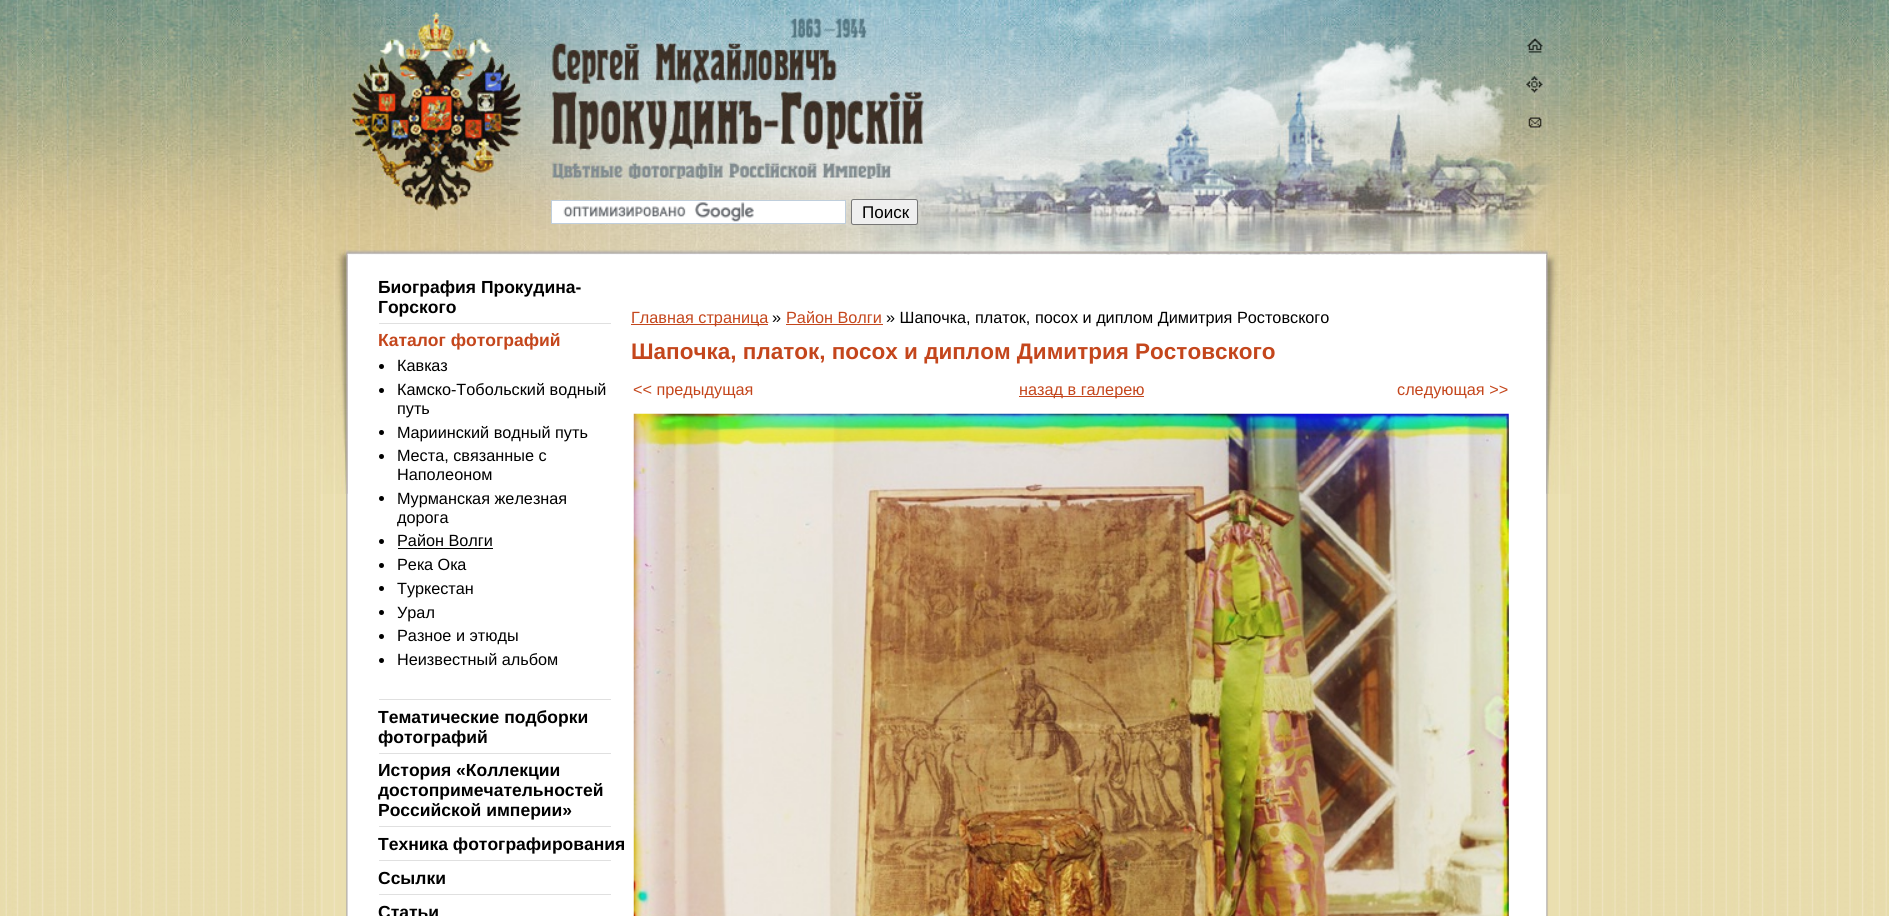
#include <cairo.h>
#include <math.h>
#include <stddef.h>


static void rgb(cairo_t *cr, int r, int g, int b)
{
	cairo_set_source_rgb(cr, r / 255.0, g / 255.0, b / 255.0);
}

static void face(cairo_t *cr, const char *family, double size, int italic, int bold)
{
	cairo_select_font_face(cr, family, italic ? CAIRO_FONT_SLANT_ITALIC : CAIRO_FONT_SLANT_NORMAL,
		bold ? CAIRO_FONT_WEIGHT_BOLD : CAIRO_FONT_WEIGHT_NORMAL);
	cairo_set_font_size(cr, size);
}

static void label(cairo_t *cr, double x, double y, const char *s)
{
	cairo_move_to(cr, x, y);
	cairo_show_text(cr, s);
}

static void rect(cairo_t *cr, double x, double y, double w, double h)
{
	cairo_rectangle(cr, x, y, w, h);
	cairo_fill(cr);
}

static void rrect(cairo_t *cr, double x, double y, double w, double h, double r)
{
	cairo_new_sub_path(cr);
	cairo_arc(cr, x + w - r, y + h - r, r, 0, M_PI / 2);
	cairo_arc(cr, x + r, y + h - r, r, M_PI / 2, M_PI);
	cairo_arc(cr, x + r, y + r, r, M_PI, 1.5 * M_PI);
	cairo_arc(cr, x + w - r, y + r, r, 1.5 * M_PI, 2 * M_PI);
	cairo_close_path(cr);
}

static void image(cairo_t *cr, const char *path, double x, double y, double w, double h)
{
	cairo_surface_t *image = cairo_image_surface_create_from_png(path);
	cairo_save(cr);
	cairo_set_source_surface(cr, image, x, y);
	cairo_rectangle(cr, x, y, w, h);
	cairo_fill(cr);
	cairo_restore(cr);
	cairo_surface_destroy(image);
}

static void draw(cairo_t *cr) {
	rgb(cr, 255, 255, 255);
	cairo_paint(cr);
	image(cr, "image0.png", 0, 466, 1889, 450);
	image(cr, "image1.png", 0, 0, 1889, 466);
	image(cr, "image2.png", 320, 0, 1252, 255);
	rgb(cr, 255, 255, 255);
	rect(cr, 552, 201, 293, 22);
	image(cr, "image3.png", 563, 202, 191, 20);
	cairo_rectangle(cr, 551.5, 200.5, 294, 23);
	rgb(cr, 191, 206, 220);
	cairo_set_line_width(cr, 1);
	cairo_stroke(cr);
	rgb(cr, 239, 239, 239);
	rrect(cr, 851.5, 199.5, 66, 25, 2);
	cairo_fill_preserve(cr);
	rgb(cr, 118, 118, 118);
	cairo_stroke(cr);
	face(cr, "Liberation Sans", 17, 0, 0);
	rgb(cr, 0, 0, 0);
	label(cr, 862, 218, "Поиск");
	image(cr, "image4.png", 320, 255, 1252, 661);
	image(cr, "image5.png", 320, 255, 28, 239);
	face(cr, "Liberation Sans", 17.5, 0, 1);
	label(cr, 378, 293, "Биография Прокудина-");
	label(cr, 378, 313, "Горского");
	rgb(cr, 224, 224, 224);
	rect(cr, 379, 323, 232, 1);
	rgb(cr, 196, 70, 28);
	label(cr, 378, 346, "Каталог фотографий");
	rgb(cr, 0, 0, 0);
	cairo_new_path(cr);
	cairo_arc(cr, 381.5, 366.5, 2.5, 0, 2 * M_PI);
	cairo_fill(cr);
	face(cr, "Liberation Sans", 16.25, 0, 0);
	label(cr, 397, 371, "Кавказ");
	cairo_new_path(cr);
	cairo_arc(cr, 381.5, 390.5, 2.5, 0, 2 * M_PI);
	cairo_fill(cr);
	label(cr, 397, 395, "Камско-Тобольский водный");
	label(cr, 397, 414, "путь");
	cairo_new_path(cr);
	cairo_arc(cr, 381.5, 432.5, 2.5, 0, 2 * M_PI);
	cairo_fill(cr);
	label(cr, 397, 438, "Мариинский водный путь");
	cairo_new_path(cr);
	cairo_arc(cr, 381.5, 456.5, 2.5, 0, 2 * M_PI);
	cairo_fill(cr);
	label(cr, 397, 461, "Места, связанные с");
	label(cr, 397, 480, "Наполеоном");
	cairo_new_path(cr);
	cairo_arc(cr, 381.5, 498.5, 2.5, 0, 2 * M_PI);
	cairo_fill(cr);
	label(cr, 397, 504, "Мурманская железная");
	label(cr, 397, 523, "дорога");
	cairo_new_path(cr);
	cairo_arc(cr, 381.5, 541.5, 2.5, 0, 2 * M_PI);
	cairo_fill(cr);
	label(cr, 397, 546, "Район Волги");
	rect(cr, 398, 548, 95, 1);
	cairo_new_path(cr);
	cairo_arc(cr, 381.5, 565.5, 2.5, 0, 2 * M_PI);
	cairo_fill(cr);
	label(cr, 397, 570, "Река Ока");
	cairo_new_path(cr);
	cairo_arc(cr, 381.5, 588.5, 2.5, 0, 2 * M_PI);
	cairo_fill(cr);
	label(cr, 397, 594, "Туркестан");
	cairo_new_path(cr);
	cairo_arc(cr, 381.5, 612.5, 2.5, 0, 2 * M_PI);
	cairo_fill(cr);
	label(cr, 397, 618, "Урал");
	cairo_new_path(cr);
	cairo_arc(cr, 381.5, 636.5, 2.5, 0, 2 * M_PI);
	cairo_fill(cr);
	label(cr, 397, 641, "Разное и этюды");
	cairo_new_path(cr);
	cairo_arc(cr, 381.5, 660.5, 2.5, 0, 2 * M_PI);
	cairo_fill(cr);
	label(cr, 397, 665, "Неизвестный альбом");
	rgb(cr, 224, 224, 224);
	rect(cr, 379, 699, 232, 1);
	face(cr, "Liberation Sans", 17.5, 0, 1);
	rgb(cr, 0, 0, 0);
	label(cr, 378, 723, "Тематические подборки");
	label(cr, 378, 743, "фотографий");
	rgb(cr, 224, 224, 224);
	rect(cr, 379, 753, 232, 1);
	rgb(cr, 0, 0, 0);
	label(cr, 378, 776, "История «Коллекции");
	label(cr, 378, 796, "достопримечательностей");
	label(cr, 378, 816, "Российской империи»");
	rgb(cr, 224, 224, 224);
	rect(cr, 379, 826, 232, 1);
	rgb(cr, 0, 0, 0);
	label(cr, 378, 850, "Техника фотографирования");
	rgb(cr, 224, 224, 224);
	rect(cr, 379, 860, 232, 1);
	rgb(cr, 0, 0, 0);
	label(cr, 378, 884, "Ссылки");
	rgb(cr, 224, 224, 224);
	rect(cr, 379, 894, 232, 1);
	rgb(cr, 0, 0, 0);
	label(cr, 378, 918, "Статьи");
	rgb(cr, 196, 70, 28);
	rect(cr, 631, 324, 137, 1);
	face(cr, "Liberation Sans", 16.25, 0, 0);
	label(cr, 631, 323, "Главная страница");
	rgb(cr, 0, 0, 0);
	label(cr, 772, 323, "»");
	rgb(cr, 196, 70, 28);
	label(cr, 786, 323, "Район Волги");
	rect(cr, 786, 324, 97, 1);
	rgb(cr, 0, 0, 0);
	label(cr, 886, 323, "» Шапочка, платок, посох и диплом Димитрия Ростовского");
	face(cr, "Liberation Sans", 22.5, 0, 1);
	rgb(cr, 196, 70, 28);
	label(cr, 631, 359, "Шапочка, платок, посох и диплом Димитрия Ростовского");
	face(cr, "Liberation Sans", 16.25, 0, 0);
	label(cr, 633, 395, "<< предыдущая");
	rect(cr, 1019, 396, 125, 1);
	label(cr, 1019, 395, "назад в галерею");
	label(cr, 1397, 395, "следующая >>");
	image(cr, "image6.png", 633, 413, 876, 503);
	image(cr, "image7.png", 1546, 255, 25, 239);
}

int main(void) {
	cairo_surface_t *surface = cairo_image_surface_create(CAIRO_FORMAT_RGB24, 1889, 916);
	cairo_t *cr = cairo_create(surface);
	cairo_font_options_t *options = cairo_font_options_create();
	cairo_font_options_set_hint_metrics(options, CAIRO_HINT_METRICS_OFF);
	cairo_font_options_set_hint_style(options, CAIRO_HINT_STYLE_NONE);
	cairo_set_font_options(cr, options);
	cairo_set_miter_limit(cr, 4);
	draw(cr);
	cairo_surface_write_to_png(surface, "render.png");
	cairo_font_options_destroy(options);
	cairo_destroy(cr);
	cairo_surface_destroy(surface);
	return 0;
}
